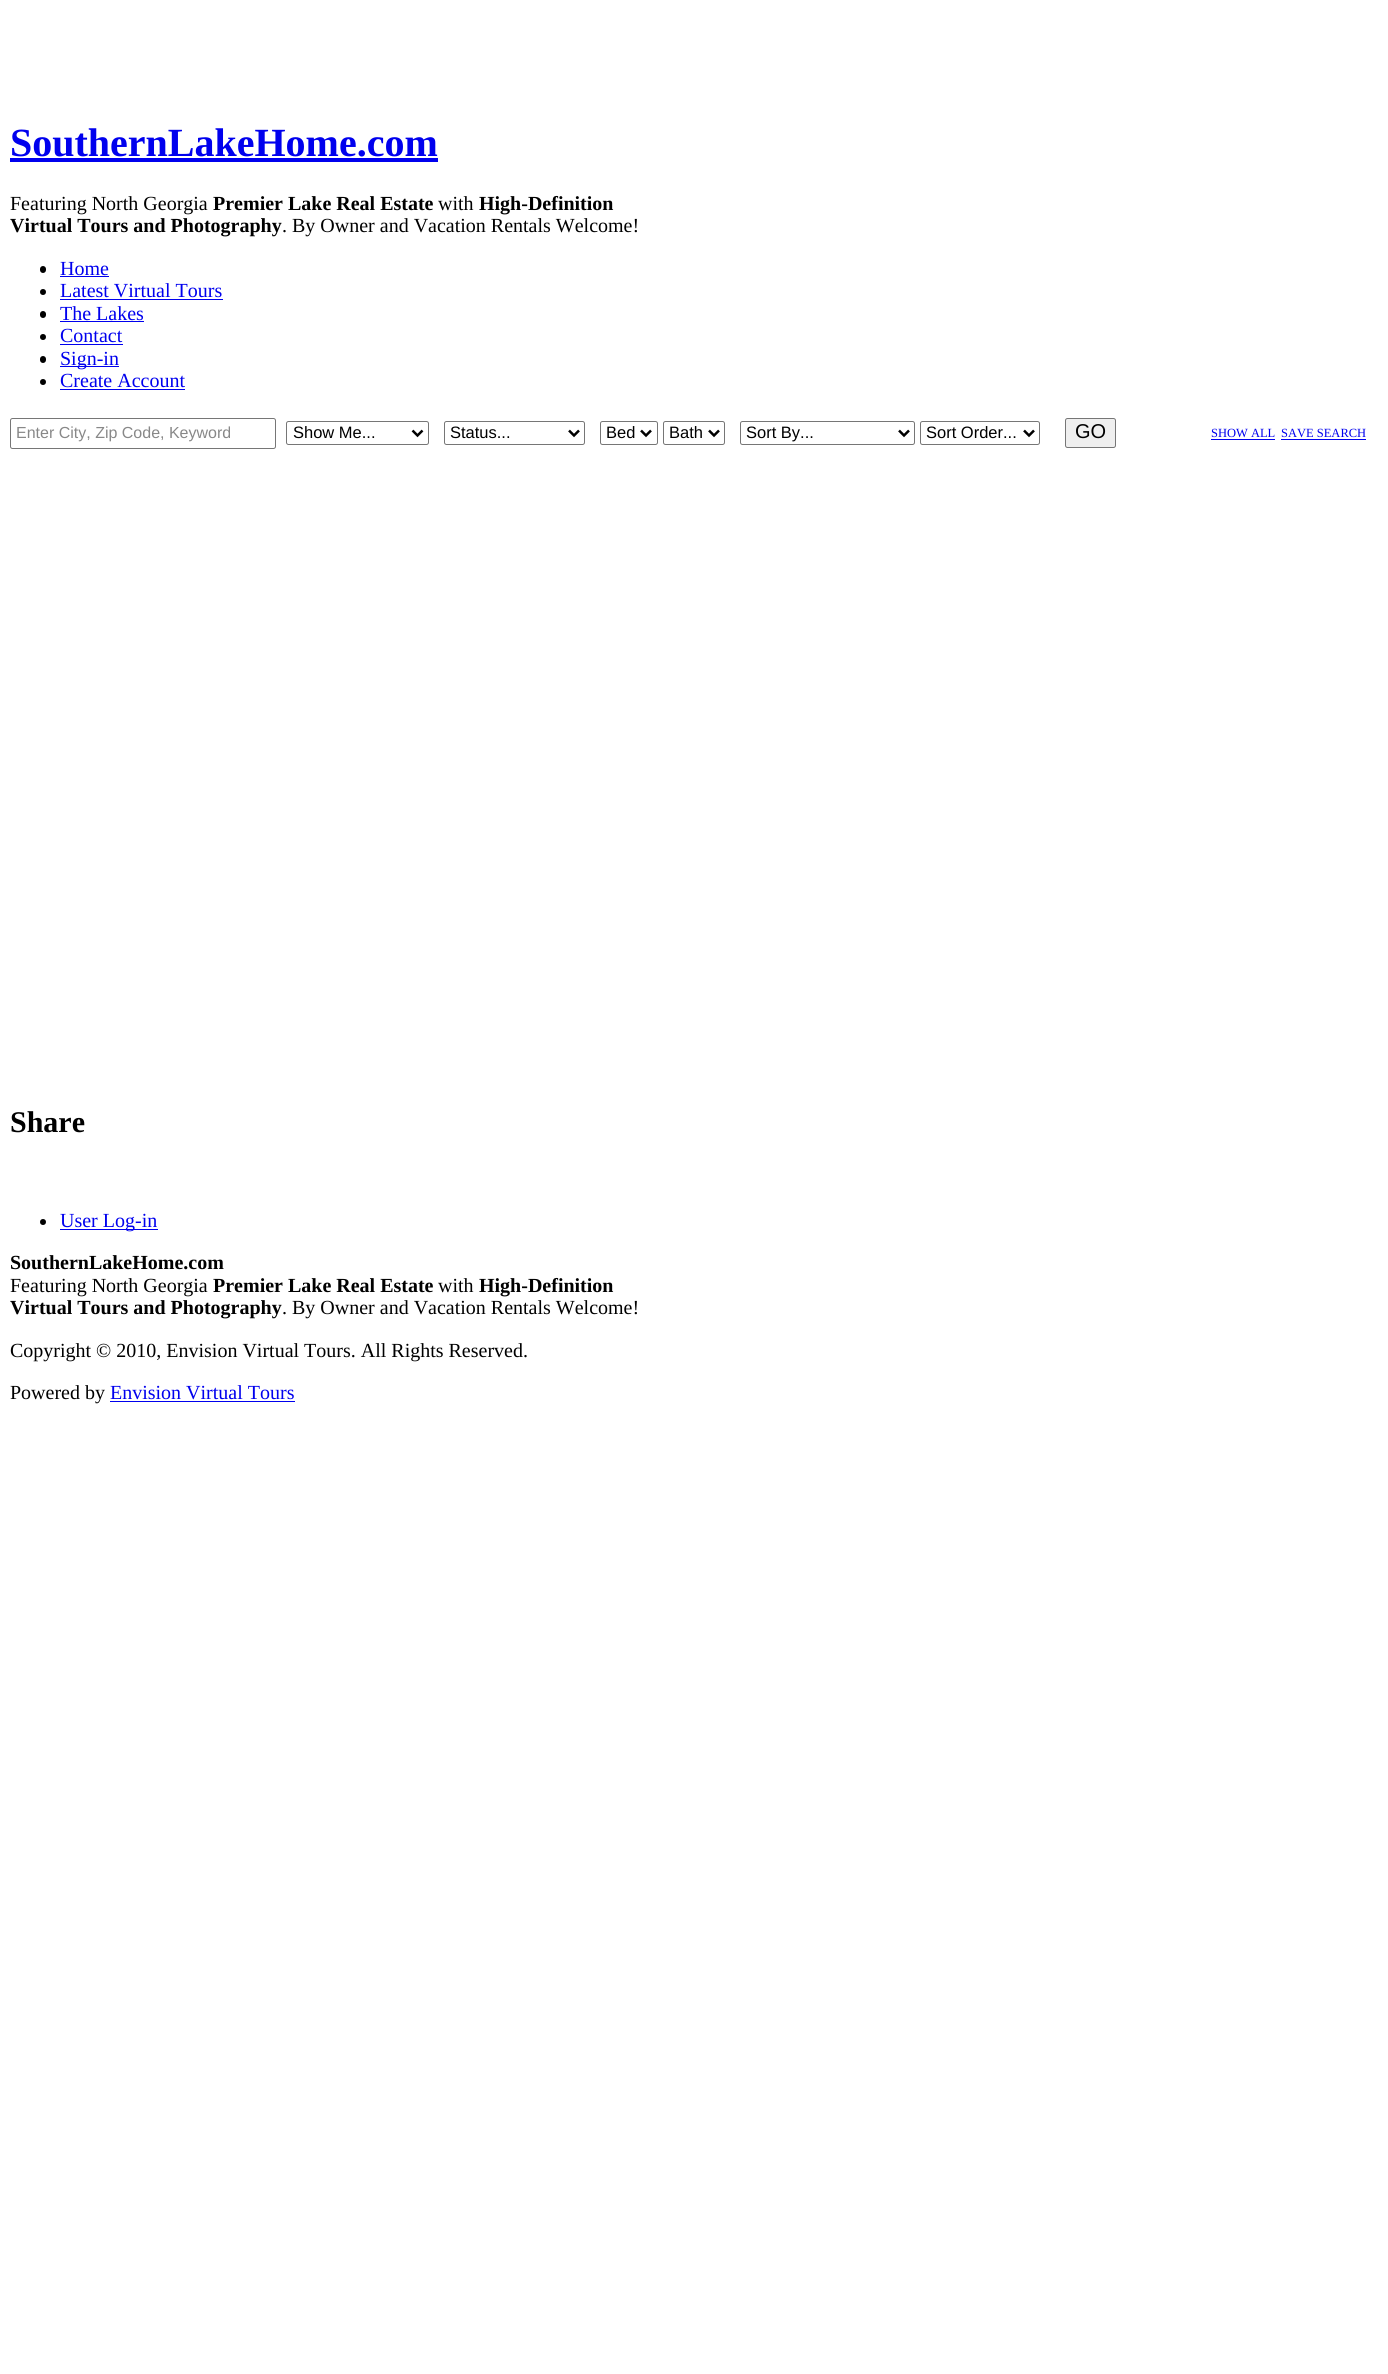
#include <cairo.h>
#include <math.h>
#include <stddef.h>


static void rgb(cairo_t *cr, int r, int g, int b)
{
	cairo_set_source_rgb(cr, r / 255.0, g / 255.0, b / 255.0);
}

static void face(cairo_t *cr, const char *family, double size, int italic, int bold)
{
	cairo_select_font_face(cr, family, italic ? CAIRO_FONT_SLANT_ITALIC : CAIRO_FONT_SLANT_NORMAL,
		bold ? CAIRO_FONT_WEIGHT_BOLD : CAIRO_FONT_WEIGHT_NORMAL);
	cairo_set_font_size(cr, size);
}

static void label(cairo_t *cr, double x, double y, const char *s)
{
	cairo_move_to(cr, x, y);
	cairo_show_text(cr, s);
}

static void rect(cairo_t *cr, double x, double y, double w, double h)
{
	cairo_rectangle(cr, x, y, w, h);
	cairo_fill(cr);
}

static void rrect(cairo_t *cr, double x, double y, double w, double h, double r)
{
	cairo_new_sub_path(cr);
	cairo_arc(cr, x + w - r, y + h - r, r, 0, M_PI / 2);
	cairo_arc(cr, x + r, y + h - r, r, M_PI / 2, M_PI);
	cairo_arc(cr, x + r, y + r, r, M_PI, 1.5 * M_PI);
	cairo_arc(cr, x + w - r, y + r, r, 1.5 * M_PI, 2 * M_PI);
	cairo_close_path(cr);
}

static void draw(cairo_t *cr) {
	rgb(cr, 255, 255, 255);
	cairo_paint(cr);
	face(cr, "Liberation Serif", 40, 0, 1);
	rgb(cr, 0, 0, 238);
	label(cr, 10, 156, "SouthernLakeHome.com");
	rect(cr, 10, 158, 428, 4);
	face(cr, "Liberation Serif", 20, 0, 0);
	rgb(cr, 0, 0, 0);
	label(cr, 10, 210, "Featuring North Georgia");
	face(cr, "Liberation Serif", 20, 0, 1);
	label(cr, 213, 210, "Premier Lake Real Estate");
	face(cr, "Liberation Serif", 20, 0, 0);
	label(cr, 438, 210, "with");
	face(cr, "Liberation Serif", 20, 0, 1);
	label(cr, 479, 210, "High-Definition");
	label(cr, 10, 232, "Virtual Tours and Photography");
	face(cr, "Liberation Serif", 20, 0, 0);
	label(cr, 282, 232, ". By Owner and Vacation Rentals Welcome!");
	rrect(cr, 40, 266, 6, 7, 3);
	cairo_fill(cr);
	rgb(cr, 0, 0, 238);
	label(cr, 60, 275, "Home");
	rect(cr, 60, 276, 49, 1);
	rgb(cr, 0, 0, 0);
	cairo_new_path(cr);
	cairo_arc(cr, 43, 292, 3, 0, 2 * M_PI);
	cairo_fill(cr);
	rgb(cr, 0, 0, 238);
	label(cr, 60, 297, "Latest Virtual Tours");
	rect(cr, 60, 299, 163, 1);
	rgb(cr, 0, 0, 0);
	rrect(cr, 40, 311, 6, 7, 3);
	cairo_fill(cr);
	rgb(cr, 0, 0, 238);
	label(cr, 60, 320, "The Lakes");
	rect(cr, 60, 321, 84, 1);
	rgb(cr, 0, 0, 0);
	cairo_new_path(cr);
	cairo_arc(cr, 43, 337, 3, 0, 2 * M_PI);
	cairo_fill(cr);
	rgb(cr, 0, 0, 238);
	label(cr, 60, 342, "Contact");
	rect(cr, 60, 344, 63, 1);
	rgb(cr, 0, 0, 0);
	rrect(cr, 40, 356, 6, 7, 3);
	cairo_fill(cr);
	rgb(cr, 0, 0, 238);
	rect(cr, 60, 366, 59, 1);
	label(cr, 60, 365, "Sign-in");
	rgb(cr, 0, 0, 0);
	cairo_new_path(cr);
	cairo_arc(cr, 43, 382, 3, 0, 2 * M_PI);
	cairo_fill(cr);
	rgb(cr, 0, 0, 238);
	label(cr, 60, 387, "Create Account");
	rect(cr, 60, 389, 125, 1);
	rrect(cr, 10.5, 418.5, 265, 30, 2);
	rgb(cr, 118, 118, 118);
	cairo_set_line_width(cr, 1);
	cairo_stroke(cr);
	face(cr, "Liberation Sans", 16, 0, 0);
	rgb(cr, 136, 136, 136);
	label(cr, 16, 438, "Enter City, Zip Code, Keyword");
	rrect(cr, 286.5, 421.5, 142, 23, 2);
	rgb(cr, 118, 118, 118);
	cairo_stroke(cr);
	cairo_new_path(cr);
	cairo_move_to(cr, 412.5, 430.5);
	cairo_line_to(cr, 417.5, 435.5);
	cairo_line_to(cr, 422.5, 430.5);
	rgb(cr, 0, 0, 0);
	cairo_set_line_width(cr, 2.5);
	cairo_stroke(cr);
	face(cr, "Liberation Sans", 16.5, 0, 0);
	label(cr, 293, 438, "Show Me...");
	rrect(cr, 444.5, 421.5, 140, 23, 2);
	rgb(cr, 118, 118, 118);
	cairo_set_line_width(cr, 1);
	cairo_stroke(cr);
	cairo_new_path(cr);
	cairo_move_to(cr, 569, 430.5);
	cairo_line_to(cr, 574, 435.5);
	cairo_line_to(cr, 579, 430.5);
	rgb(cr, 0, 0, 0);
	cairo_set_line_width(cr, 2.5);
	cairo_stroke(cr);
	label(cr, 450, 438, "Status...");
	rrect(cr, 600.5, 421.5, 57, 23, 2);
	rgb(cr, 118, 118, 118);
	cairo_set_line_width(cr, 1);
	cairo_stroke(cr);
	cairo_new_path(cr);
	cairo_move_to(cr, 641, 430.5);
	cairo_line_to(cr, 646, 435.5);
	cairo_line_to(cr, 651, 430.5);
	rgb(cr, 0, 0, 0);
	cairo_set_line_width(cr, 2.5);
	cairo_stroke(cr);
	label(cr, 606, 438, "Bed");
	rrect(cr, 663.5, 421.5, 61, 23, 2);
	rgb(cr, 118, 118, 118);
	cairo_set_line_width(cr, 1);
	cairo_stroke(cr);
	cairo_new_path(cr);
	cairo_move_to(cr, 709, 430.5);
	cairo_line_to(cr, 714, 435.5);
	cairo_line_to(cr, 719, 430.5);
	rgb(cr, 0, 0, 0);
	cairo_set_line_width(cr, 2.5);
	cairo_stroke(cr);
	label(cr, 669, 438, "Bath");
	rrect(cr, 740.5, 421.5, 174, 23, 2);
	rgb(cr, 118, 118, 118);
	cairo_set_line_width(cr, 1);
	cairo_stroke(cr);
	cairo_new_path(cr);
	cairo_move_to(cr, 899, 430.5);
	cairo_line_to(cr, 904, 435.5);
	cairo_line_to(cr, 909, 430.5);
	rgb(cr, 0, 0, 0);
	cairo_set_line_width(cr, 2.5);
	cairo_stroke(cr);
	label(cr, 746, 438, "Sort By...");
	rrect(cr, 920.5, 421.5, 119, 23, 2);
	rgb(cr, 118, 118, 118);
	cairo_set_line_width(cr, 1);
	cairo_stroke(cr);
	cairo_new_path(cr);
	cairo_move_to(cr, 1024, 430.5);
	cairo_line_to(cr, 1029, 435.5);
	cairo_line_to(cr, 1034, 430.5);
	rgb(cr, 0, 0, 0);
	cairo_set_line_width(cr, 2.5);
	cairo_stroke(cr);
	label(cr, 926, 438, "Sort Order...");
	rgb(cr, 239, 239, 239);
	rrect(cr, 1065.5, 418.5, 50, 29, 2);
	cairo_fill_preserve(cr);
	rgb(cr, 118, 118, 118);
	cairo_set_line_width(cr, 1);
	cairo_stroke(cr);
	face(cr, "Liberation Sans", 20, 0, 0);
	rgb(cr, 0, 0, 0);
	label(cr, 1075, 438, "GO");
	face(cr, "Liberation Serif", 12.5, 0, 0);
	rgb(cr, 0, 0, 238);
	label(cr, 1211, 437, "SHOW ALL");
	rect(cr, 1211, 439, 64, 1);
	label(cr, 1281, 437, "SAVE SEARCH");
	rect(cr, 1281, 439, 85, 1);
	face(cr, "Liberation Serif", 30, 0, 1);
	rgb(cr, 0, 0, 0);
	label(cr, 10, 1132, "Share");
	cairo_new_path(cr);
	cairo_arc(cr, 43, 1222, 3, 0, 2 * M_PI);
	cairo_fill(cr);
	rgb(cr, 0, 0, 238);
	rect(cr, 60, 1229, 98, 1);
	face(cr, "Liberation Serif", 20, 0, 0);
	label(cr, 60, 1227, "User Log-in");
	face(cr, "Liberation Serif", 20, 0, 1);
	rgb(cr, 0, 0, 0);
	label(cr, 10, 1269, "SouthernLakeHome.com");
	face(cr, "Liberation Serif", 20, 0, 0);
	label(cr, 10, 1292, "Featuring North Georgia");
	face(cr, "Liberation Serif", 20, 0, 1);
	label(cr, 213, 1292, "Premier Lake Real Estate");
	face(cr, "Liberation Serif", 20, 0, 0);
	label(cr, 438, 1292, "with");
	face(cr, "Liberation Serif", 20, 0, 1);
	label(cr, 479, 1292, "High-Definition");
	label(cr, 10, 1314, "Virtual Tours and Photography");
	face(cr, "Liberation Serif", 20, 0, 0);
	label(cr, 282, 1314, ". By Owner and Vacation Rentals Welcome!");
	label(cr, 10, 1357, "Copyright © 2010, Envision Virtual Tours. All Rights Reserved.");
	label(cr, 10, 1399, "Powered by");
	rgb(cr, 0, 0, 238);
	label(cr, 110, 1399, "Envision Virtual Tours");
	rect(cr, 110, 1401, 185, 1);
}

int main(void) {
	cairo_surface_t *surface = cairo_image_surface_create(CAIRO_FORMAT_RGB24, 1388, 2374);
	cairo_t *cr = cairo_create(surface);
	cairo_font_options_t *options = cairo_font_options_create();
	cairo_font_options_set_hint_metrics(options, CAIRO_HINT_METRICS_OFF);
	cairo_font_options_set_hint_style(options, CAIRO_HINT_STYLE_NONE);
	cairo_set_font_options(cr, options);
	cairo_set_miter_limit(cr, 4);
	draw(cr);
	cairo_surface_write_to_png(surface, "render.png");
	cairo_font_options_destroy(options);
	cairo_destroy(cr);
	cairo_surface_destroy(surface);
	return 0;
}
